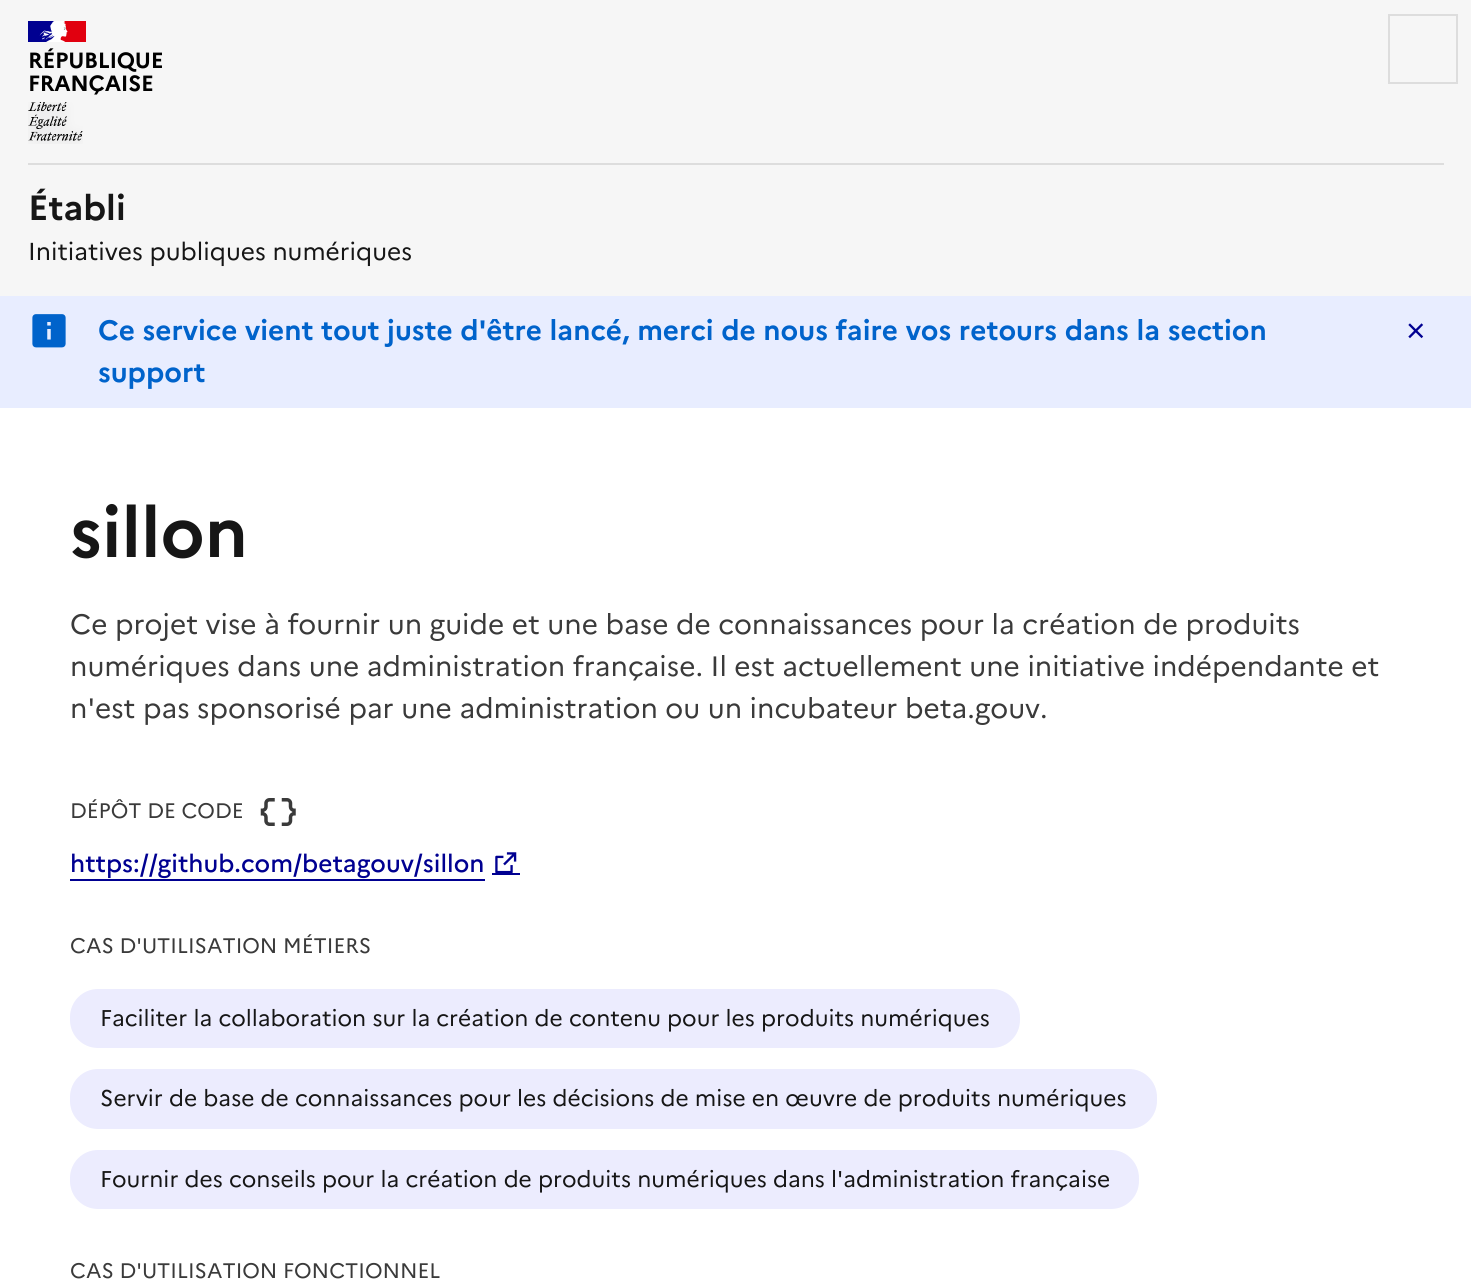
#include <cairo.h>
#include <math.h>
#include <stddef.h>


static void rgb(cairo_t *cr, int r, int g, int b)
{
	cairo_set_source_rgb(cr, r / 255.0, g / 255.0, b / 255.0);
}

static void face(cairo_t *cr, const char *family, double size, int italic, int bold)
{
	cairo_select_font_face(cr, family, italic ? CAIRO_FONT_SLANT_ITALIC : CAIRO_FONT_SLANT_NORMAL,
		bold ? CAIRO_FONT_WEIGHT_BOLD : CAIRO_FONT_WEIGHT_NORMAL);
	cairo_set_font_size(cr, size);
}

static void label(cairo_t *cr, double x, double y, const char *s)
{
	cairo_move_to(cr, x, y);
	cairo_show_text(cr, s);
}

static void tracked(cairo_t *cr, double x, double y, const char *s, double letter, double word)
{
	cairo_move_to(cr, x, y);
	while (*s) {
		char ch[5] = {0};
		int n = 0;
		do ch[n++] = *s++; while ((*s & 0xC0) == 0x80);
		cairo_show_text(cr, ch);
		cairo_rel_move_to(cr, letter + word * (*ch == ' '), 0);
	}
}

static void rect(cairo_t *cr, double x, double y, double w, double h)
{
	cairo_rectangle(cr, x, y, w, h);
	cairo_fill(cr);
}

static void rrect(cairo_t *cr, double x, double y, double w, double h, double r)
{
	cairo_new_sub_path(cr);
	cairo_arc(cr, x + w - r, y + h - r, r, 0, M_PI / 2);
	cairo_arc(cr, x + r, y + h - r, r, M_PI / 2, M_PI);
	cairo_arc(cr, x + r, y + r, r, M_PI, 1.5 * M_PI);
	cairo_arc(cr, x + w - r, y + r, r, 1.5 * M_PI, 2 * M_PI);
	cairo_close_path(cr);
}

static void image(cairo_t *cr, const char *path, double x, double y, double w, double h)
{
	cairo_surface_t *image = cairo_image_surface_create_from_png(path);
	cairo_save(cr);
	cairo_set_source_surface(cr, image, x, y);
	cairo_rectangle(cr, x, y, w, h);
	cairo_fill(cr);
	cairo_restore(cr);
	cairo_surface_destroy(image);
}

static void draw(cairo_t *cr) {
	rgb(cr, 255, 255, 255);
	cairo_paint(cr);
	rgb(cr, 246, 246, 246);
	rect(cr, 0, 0, 1471, 296);
	rgb(cr, 0, 0, 145);
	rect(cr, 28, 21, 27, 21);
	rgb(cr, 225, 0, 15);
	rect(cr, 60, 21, 26, 21);
	image(cr, "image0.png", 39, 21, 29, 21);
	face(cr, "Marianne", 22, 0, 1);
	rgb(cr, 0, 0, 0);
	tracked(cr, 28, 68, "RÉPUBLIQUE", -0.25, 0);
	tracked(cr, 28, 91, "FRANÇAISE", -0.25, 0);
	image(cr, "image1.png", 28, 102, 55, 42);
	cairo_rectangle(cr, 1389, 15, 68, 68);
	rgb(cr, 221, 221, 221);
	cairo_stroke(cr);
	rect(cr, 28, 163, 1416, 2);
	face(cr, "Marianne", 35, 0, 1);
	rgb(cr, 22, 22, 22);
	label(cr, 28, 220, "Établi");
	face(cr, "Marianne", 24.5, 0, 0);
	label(cr, 28, 260, "Initiatives publiques numériques");
	rgb(cr, 232, 237, 255);
	rect(cr, 0, 296, 1471, 112);
	image(cr, "image2.png", 32, 314, 34, 34);
	face(cr, "Marianne", 28, 0, 1);
	rgb(cr, 0, 99, 203);
	label(cr, 98, 340, "Ce service vient tout juste d'être lancé, merci de nous faire vos retours dans la section");
	label(cr, 98, 382, "support");
	image(cr, "image3.png", 1408, 323, 16, 16);
	face(cr, "Marianne", 70, 0, 1);
	rgb(cr, 22, 22, 22);
	label(cr, 70, 557, "sillon");
	face(cr, "Marianne", 28, 0, 0);
	rgb(cr, 58, 58, 58);
	label(cr, 70, 634, "Ce projet vise à fournir un guide et une base de connaissances pour la création de produits");
	label(cr, 70, 676, "numériques dans une administration française. Il est actuellement une initiative indépendante et");
	label(cr, 70, 718, "n'est pas sponsorisé par une administration ou un incubateur beta.gouv.");
	face(cr, "Marianne", 21, 0, 0);
	label(cr, 70, 818, "DÉPÔT DE CODE");
	image(cr, "image4.png", 260, 798, 36, 28);
	rgb(cr, 0, 0, 145);
	rect(cr, 70, 879, 415, 2);
	rect(cr, 492, 873, 28, 2);
	face(cr, "Marianne Medium", 24.5, 0, 0);
	label(cr, 70, 872, "https://github.com/betagouv/sillon");
	image(cr, "image5.png", 495, 852, 22, 21);
	face(cr, "Marianne", 21, 0, 0);
	rgb(cr, 58, 58, 58);
	label(cr, 70, 953, "CAS D'UTILISATION MÉTIERS");
	rgb(cr, 236, 236, 254);
	rrect(cr, 70, 989, 950, 59, 28);
	cairo_fill(cr);
	face(cr, "Marianne", 22.75, 0, 0);
	rgb(cr, 22, 22, 22);
	label(cr, 100, 1026, "Faciliter la collaboration sur la création de contenu pour les produits numériques");
	rgb(cr, 236, 236, 254);
	rrect(cr, 70, 1069, 1087, 60, 28);
	cairo_fill(cr);
	rgb(cr, 22, 22, 22);
	label(cr, 100, 1106, "Servir de base de connaissances pour les décisions de mise en œuvre de produits numériques");
	rgb(cr, 236, 236, 254);
	rrect(cr, 70, 1150, 1069, 59, 28);
	cairo_fill(cr);
	rgb(cr, 22, 22, 22);
	label(cr, 100, 1187, "Fournir des conseils pour la création de produits numériques dans l'administration française");
	face(cr, "Marianne", 21, 0, 0);
	rgb(cr, 58, 58, 58);
	label(cr, 70, 1278, "CAS D'UTILISATION FONCTIONNEL");
}

int main(void) {
	cairo_surface_t *surface = cairo_image_surface_create(CAIRO_FORMAT_RGB24, 1471, 1282);
	cairo_t *cr = cairo_create(surface);
	cairo_font_options_t *options = cairo_font_options_create();
	cairo_font_options_set_hint_metrics(options, CAIRO_HINT_METRICS_OFF);
	cairo_font_options_set_hint_style(options, CAIRO_HINT_STYLE_NONE);
	cairo_set_font_options(cr, options);
	cairo_set_miter_limit(cr, 4);
	draw(cr);
	cairo_surface_write_to_png(surface, "render.png");
	cairo_font_options_destroy(options);
	cairo_destroy(cr);
	cairo_surface_destroy(surface);
	return 0;
}
